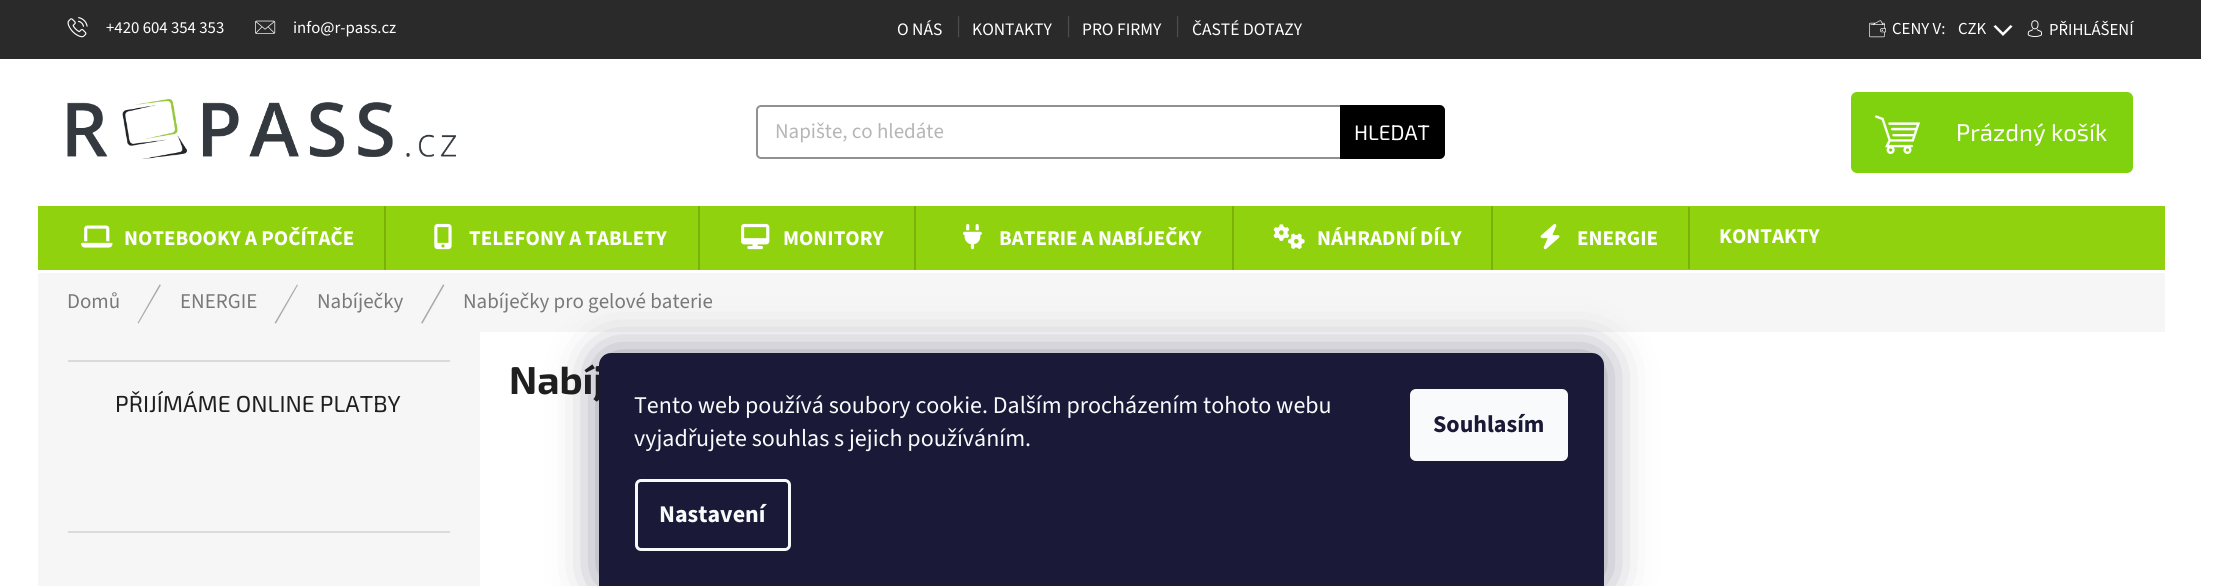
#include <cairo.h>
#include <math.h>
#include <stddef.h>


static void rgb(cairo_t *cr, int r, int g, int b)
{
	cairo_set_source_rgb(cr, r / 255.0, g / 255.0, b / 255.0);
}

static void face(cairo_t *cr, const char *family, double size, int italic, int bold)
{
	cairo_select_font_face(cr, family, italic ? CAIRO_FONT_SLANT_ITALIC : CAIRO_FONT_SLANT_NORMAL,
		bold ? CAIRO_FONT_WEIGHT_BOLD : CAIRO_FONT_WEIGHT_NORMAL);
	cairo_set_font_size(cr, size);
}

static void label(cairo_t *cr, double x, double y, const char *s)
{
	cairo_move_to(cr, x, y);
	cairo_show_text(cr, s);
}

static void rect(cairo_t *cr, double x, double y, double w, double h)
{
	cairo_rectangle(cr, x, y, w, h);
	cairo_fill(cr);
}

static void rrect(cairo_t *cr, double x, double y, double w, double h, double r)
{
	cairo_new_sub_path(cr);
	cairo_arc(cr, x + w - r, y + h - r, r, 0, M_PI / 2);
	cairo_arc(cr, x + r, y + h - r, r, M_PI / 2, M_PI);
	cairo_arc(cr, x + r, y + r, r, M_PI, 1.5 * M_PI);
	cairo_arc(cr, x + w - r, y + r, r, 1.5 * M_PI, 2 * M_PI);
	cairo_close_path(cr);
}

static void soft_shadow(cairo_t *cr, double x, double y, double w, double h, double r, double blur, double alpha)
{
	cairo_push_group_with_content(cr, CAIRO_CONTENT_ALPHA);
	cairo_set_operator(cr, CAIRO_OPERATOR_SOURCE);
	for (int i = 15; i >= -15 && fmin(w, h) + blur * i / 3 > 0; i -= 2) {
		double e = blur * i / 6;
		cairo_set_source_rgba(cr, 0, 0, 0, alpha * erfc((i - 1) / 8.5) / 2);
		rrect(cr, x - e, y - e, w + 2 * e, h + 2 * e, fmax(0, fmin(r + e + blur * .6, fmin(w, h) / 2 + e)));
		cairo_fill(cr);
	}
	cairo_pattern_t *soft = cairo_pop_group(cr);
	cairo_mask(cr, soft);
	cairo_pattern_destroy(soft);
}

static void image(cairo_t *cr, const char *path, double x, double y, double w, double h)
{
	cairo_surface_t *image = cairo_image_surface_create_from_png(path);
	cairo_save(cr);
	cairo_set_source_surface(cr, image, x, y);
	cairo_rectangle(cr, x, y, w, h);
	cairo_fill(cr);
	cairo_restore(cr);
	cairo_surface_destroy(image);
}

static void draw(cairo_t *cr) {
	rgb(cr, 255, 255, 255);
	cairo_paint(cr);
	rgb(cr, 42, 42, 42);
	rect(cr, 0, 0, 2201, 59);
	image(cr, "image0.png", 67, 17, 21, 21);
	face(cr, "Source Sans 3", 16.75, 0, 0);
	rgb(cr, 255, 255, 255);
	label(cr, 106, 33, "+420 604 354 353");
	image(cr, "image1.png", 255, 20, 21, 14);
	label(cr, 293, 33, "info@r-pass.cz");
	face(cr, "Source Sans 3", 17.5, 0, 0);
	label(cr, 897, 35, "O NÁS");
	face(cr, "Source Sans 3", 21, 0, 0);
	rgb(cr, 77, 77, 77);
	label(cr, 956, 32, "|");
	face(cr, "Source Sans 3", 17.5, 0, 0);
	rgb(cr, 255, 255, 255);
	label(cr, 972, 35, "KONTAKTY");
	face(cr, "Source Sans 3", 21, 0, 0);
	rgb(cr, 77, 77, 77);
	label(cr, 1066, 32, "|");
	face(cr, "Source Sans 3", 17.5, 0, 0);
	rgb(cr, 255, 255, 255);
	label(cr, 1082, 35, "PRO FIRMY");
	face(cr, "Source Sans 3", 21, 0, 0);
	rgb(cr, 77, 77, 77);
	label(cr, 1175, 32, "|");
	face(cr, "Source Sans 3", 17.5, 0, 0);
	rgb(cr, 255, 255, 255);
	label(cr, 1192, 35, "ČASTÉ DOTAZY");
	image(cr, "image2.png", 1869, 20, 17, 18);
	face(cr, "Source Sans 3", 16.75, 0, 0);
	label(cr, 1892, 34, "CENY V:");
	label(cr, 1958, 34, "CZK");
	cairo_new_path(cr);
	cairo_move_to(cr, 1993.5, 26.5);
	cairo_line_to(cr, 1995.5, 25);
	cairo_line_to(cr, 2003, 32.5);
	cairo_line_to(cr, 2010.5, 25);
	cairo_line_to(cr, 2012.5, 26.5);
	cairo_line_to(cr, 2003, 36);
	cairo_close_path(cr);
	cairo_fill(cr);
	image(cr, "image3.png", 2027, 20, 16, 17);
	label(cr, 2049, 35, "PŘIHLÁŠENÍ");
	image(cr, "image4.png", 67, 99, 389, 60);
	rrect(cr, 757, 106, 687, 52, 4);
	rgb(cr, 145, 145, 145);
	cairo_stroke(cr);
	face(cr, "Source Sans 3", 21, 0, 0);
	rgb(cr, 182, 182, 182);
	label(cr, 775, 138, "Napište, co hledáte");
	rgb(cr, 0, 0, 0);
	cairo_new_path(cr);
	cairo_move_to(cr, 1341, 106);
	cairo_line_to(cr, 1439, 106);
	cairo_curve_to(cr, 1442, 106, 1444, 108, 1444, 111);
	cairo_line_to(cr, 1444, 153);
	cairo_curve_to(cr, 1444, 156, 1442, 158, 1439, 158);
	cairo_line_to(cr, 1341, 158);
	cairo_close_path(cr);
	cairo_fill_preserve(cr);
	cairo_stroke(cr);
	face(cr, "Exo 2", 21, 0, 0);
	rgb(cr, 255, 255, 255);
	label(cr, 1354, 140, "HLEDAT");
	rgb(cr, 128, 210, 14);
	rrect(cr, 1851, 92, 282, 81, 6);
	cairo_fill(cr);
	image(cr, "image5.png", 1875, 115, 45, 39);
	face(cr, "Exo 2", 24, 0, 0);
	rgb(cr, 255, 255, 255);
	label(cr, 1956, 141, "Prázdný košík");
	rgb(cr, 144, 210, 14);
	rect(cr, 38, 206, 2127, 64);
	image(cr, "image6.png", 81, 225, 32, 23);
	face(cr, "Source Sans 3", 21, 0, 1);
	rgb(cr, 255, 255, 255);
	label(cr, 124, 245, "NOTEBOOKY A POČÍTAČE");
	rgb(cr, 122, 177, 11);
	rect(cr, 384, 206, 2, 64);
	image(cr, "image7.png", 434, 223, 18, 27);
	rgb(cr, 255, 255, 255);
	label(cr, 469, 245, "TELEFONY A TABLETY");
	rgb(cr, 122, 177, 11);
	rect(cr, 698, 206, 2, 64);
	image(cr, "image8.png", 741, 223, 29, 27);
	rgb(cr, 255, 255, 255);
	label(cr, 783, 245, "MONITORY");
	rgb(cr, 122, 177, 11);
	rect(cr, 914, 206, 2, 64);
	image(cr, "image9.png", 963, 224, 19, 26);
	rgb(cr, 255, 255, 255);
	label(cr, 999, 245, "BATERIE A NABÍJEČKY");
	rgb(cr, 122, 177, 11);
	rect(cr, 1232, 206, 2, 64);
	image(cr, "image10.png", 1273, 224, 32, 25);
	rgb(cr, 255, 255, 255);
	label(cr, 1317, 245, "NÁHRADNÍ DÍLY");
	rgb(cr, 122, 177, 11);
	rect(cr, 1491, 206, 2, 64);
	image(cr, "image11.png", 1540, 224, 20, 26);
	rgb(cr, 255, 255, 255);
	label(cr, 1577, 245, "ENERGIE");
	rgb(cr, 122, 177, 11);
	rect(cr, 1688, 207, 2, 62);
	rgb(cr, 255, 255, 255);
	label(cr, 1719, 243, "KONTAKTY");
	rgb(cr, 246, 246, 246);
	rect(cr, 38, 273, 2127, 59);
	face(cr, "Source Sans 3", 21, 0, 0);
	rgb(cr, 121, 121, 121);
	label(cr, 67, 308, "Domů");
	rgb(cr, 170, 170, 170);
	cairo_new_path(cr);
	cairo_move_to(cr, 159.5, 284.5);
	cairo_line_to(cr, 161, 285);
	cairo_line_to(cr, 138.5, 323.5);
	cairo_line_to(cr, 137.5, 323);
	cairo_close_path(cr);
	cairo_fill(cr);
	rgb(cr, 121, 121, 121);
	label(cr, 180, 308, "ENERGIE");
	rgb(cr, 170, 170, 170);
	cairo_new_path(cr);
	cairo_move_to(cr, 297, 284.5);
	cairo_line_to(cr, 298, 285);
	cairo_line_to(cr, 276, 323.5);
	cairo_line_to(cr, 274.5, 323);
	cairo_close_path(cr);
	cairo_fill(cr);
	rgb(cr, 121, 121, 121);
	label(cr, 317, 308, "Nabíječky");
	rgb(cr, 170, 170, 170);
	cairo_new_path(cr);
	cairo_move_to(cr, 443, 284.5);
	cairo_line_to(cr, 444.5, 285);
	cairo_line_to(cr, 422.5, 323.5);
	cairo_line_to(cr, 421, 323);
	cairo_close_path(cr);
	cairo_fill(cr);
	rgb(cr, 121, 121, 121);
	label(cr, 463, 308, "Nabíječky pro gelové baterie");
	rgb(cr, 246, 246, 246);
	rect(cr, 38, 332, 442, 254);
	rgb(cr, 218, 218, 218);
	rect(cr, 68, 360, 382, 2);
	rect(cr, 68, 531, 382, 2);
	face(cr, "Exo 2", 23.1, 0, 0);
	rgb(cr, 31, 31, 31);
	label(cr, 115, 412, "PŘIJÍMÁME ONLINE PLATBY");
	face(cr, "Exo 2", 39, 0, 1);
	label(cr, 509, 394, "Nabíj");
	rgb(cr, 27, 25, 57);
	soft_shadow(cr, 599, 353, 1005, 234, 12, 22.5, 0.5);
	rgb(cr, 26, 25, 55);
	cairo_new_path(cr);
	cairo_move_to(cr, 611, 353);
	cairo_line_to(cr, 1592, 353);
	cairo_curve_to(cr, 1598.5, 353, 1604, 358.5, 1604, 365);
	cairo_line_to(cr, 1604, 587);
	cairo_line_to(cr, 599, 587);
	cairo_line_to(cr, 599, 365);
	cairo_curve_to(cr, 599, 358.5, 604.5, 353, 611, 353);
	cairo_close_path(cr);
	cairo_fill(cr);
	face(cr, "Source Sans 3", 24, 0, 0);
	rgb(cr, 248, 250, 251);
	label(cr, 634, 413, "Tento web používá soubory cookie. Dalším procházením tohoto webu");
	label(cr, 634, 446, "vyjadřujete souhlas s jejich používáním.");
	rrect(cr, 636.5, 480.5, 153, 69, 4.5);
	cairo_set_line_width(cr, 3);
	cairo_stroke(cr);
	face(cr, "Source Sans 3", 24, 0, 1);
	label(cr, 659, 522, "Nastavení");
	rrect(cr, 1410, 389, 158, 72, 6);
	cairo_fill(cr);
	rgb(cr, 26, 25, 55);
	label(cr, 1433, 432, "Souhlasím");
}

int main(void) {
	cairo_surface_t *surface = cairo_image_surface_create(CAIRO_FORMAT_RGB24, 2223, 586);
	cairo_t *cr = cairo_create(surface);
	cairo_font_options_t *options = cairo_font_options_create();
	cairo_font_options_set_hint_metrics(options, CAIRO_HINT_METRICS_OFF);
	cairo_font_options_set_hint_style(options, CAIRO_HINT_STYLE_NONE);
	cairo_set_font_options(cr, options);
	cairo_set_miter_limit(cr, 4);
	draw(cr);
	cairo_surface_write_to_png(surface, "render.png");
	cairo_font_options_destroy(options);
	cairo_destroy(cr);
	cairo_surface_destroy(surface);
	return 0;
}
